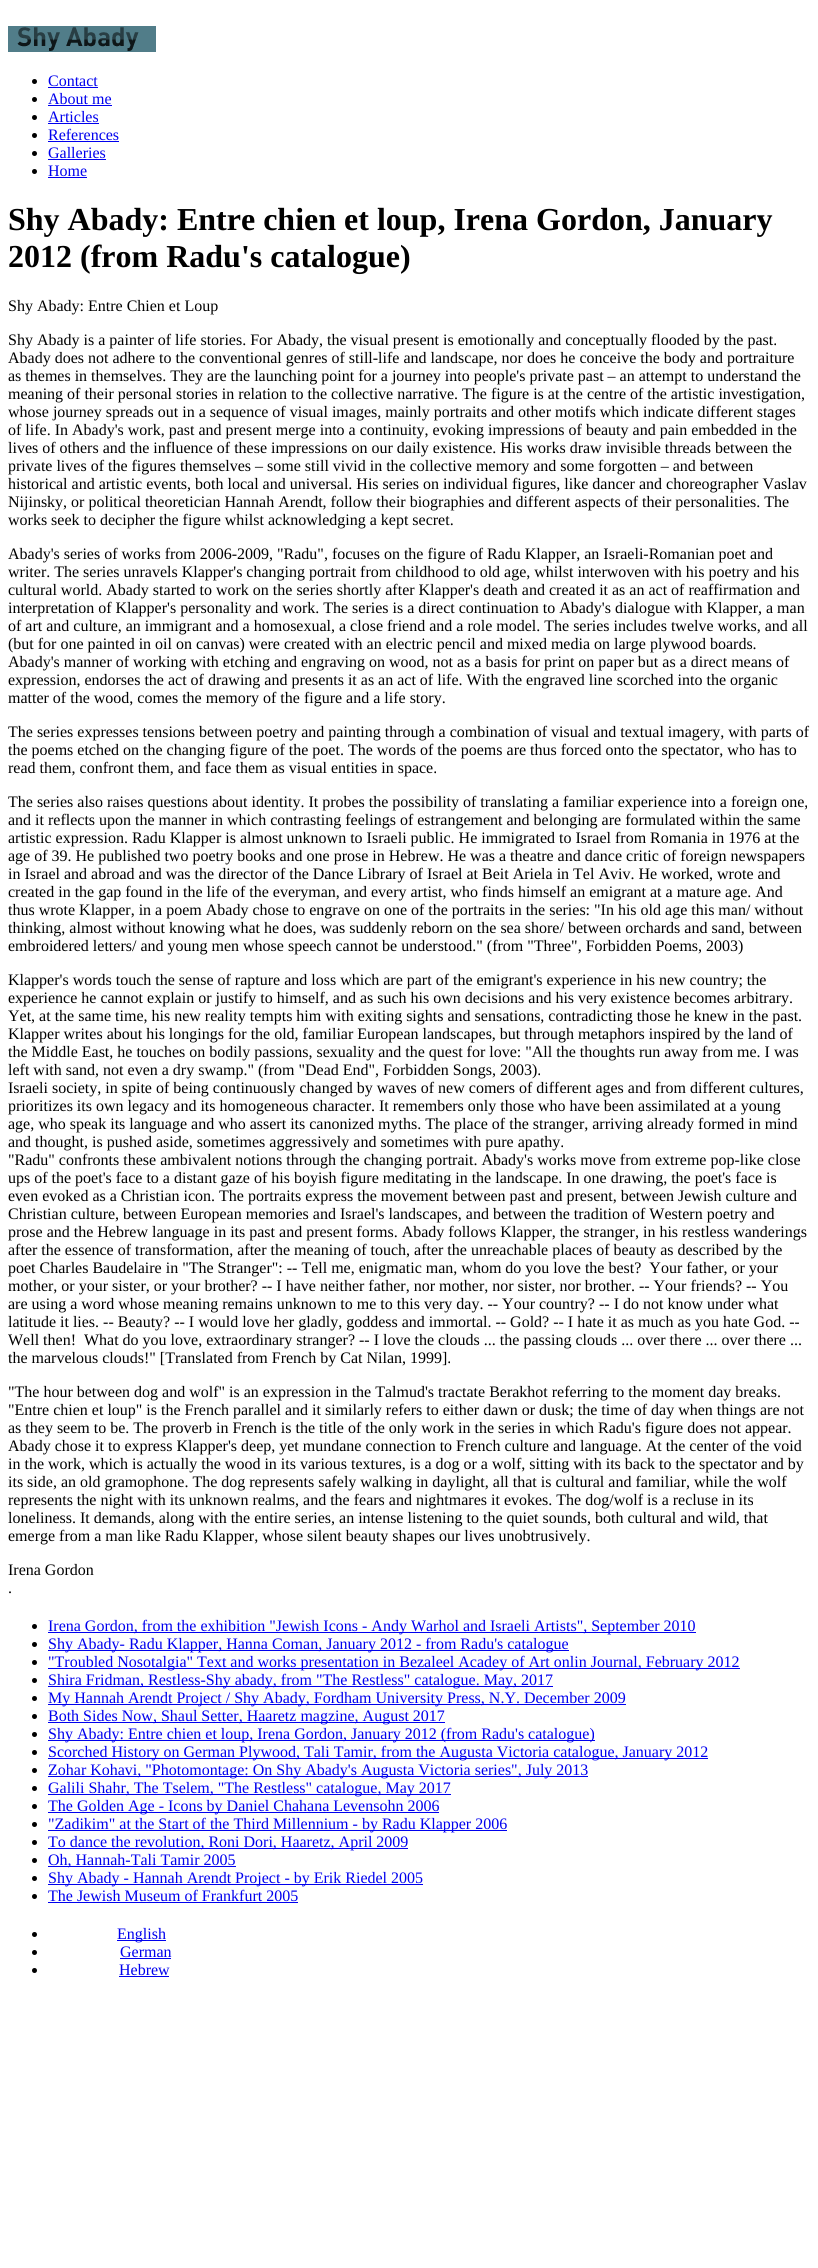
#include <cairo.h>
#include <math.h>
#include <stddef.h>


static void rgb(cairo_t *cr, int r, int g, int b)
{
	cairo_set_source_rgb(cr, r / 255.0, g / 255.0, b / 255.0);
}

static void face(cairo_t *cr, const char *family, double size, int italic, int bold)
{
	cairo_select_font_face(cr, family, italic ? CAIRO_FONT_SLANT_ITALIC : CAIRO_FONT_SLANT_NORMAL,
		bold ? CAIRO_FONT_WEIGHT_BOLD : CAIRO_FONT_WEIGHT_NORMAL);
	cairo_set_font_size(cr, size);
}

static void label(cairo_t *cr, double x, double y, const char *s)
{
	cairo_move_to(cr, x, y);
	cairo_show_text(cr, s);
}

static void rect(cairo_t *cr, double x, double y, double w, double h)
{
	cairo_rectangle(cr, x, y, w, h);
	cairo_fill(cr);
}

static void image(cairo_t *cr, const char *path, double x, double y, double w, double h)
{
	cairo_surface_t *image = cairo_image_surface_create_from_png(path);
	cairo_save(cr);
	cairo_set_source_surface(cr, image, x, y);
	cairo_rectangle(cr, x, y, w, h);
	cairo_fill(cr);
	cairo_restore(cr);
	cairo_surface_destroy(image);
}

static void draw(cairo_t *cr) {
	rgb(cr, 255, 255, 255);
	cairo_paint(cr);
	image(cr, "image0.png", 8, 26, 148, 26);
	rgb(cr, 0, 0, 0);
	cairo_arc(cr, 34.5, 81.5, 2.5, 0, 2 * M_PI);
	cairo_fill(cr);
	face(cr, "Liberation Serif", 16, 0, 0);
	rgb(cr, 0, 0, 238);
	label(cr, 48, 86, "Contact");
	rect(cr, 48, 87, 50, 1);
	rgb(cr, 0, 0, 0);
	cairo_new_path(cr);
	cairo_arc(cr, 34.5, 99.5, 2.5, 0, 2 * M_PI);
	cairo_fill(cr);
	rgb(cr, 0, 0, 238);
	label(cr, 48, 104, "About me");
	rect(cr, 48, 105, 64, 1);
	rgb(cr, 0, 0, 0);
	cairo_new_path(cr);
	cairo_arc(cr, 34.5, 117.5, 2.5, 0, 2 * M_PI);
	cairo_fill(cr);
	rgb(cr, 0, 0, 238);
	label(cr, 48, 122, "Articles");
	rect(cr, 48, 123, 51, 1);
	rgb(cr, 0, 0, 0);
	cairo_new_path(cr);
	cairo_arc(cr, 34.5, 135.5, 2.5, 0, 2 * M_PI);
	cairo_fill(cr);
	rgb(cr, 0, 0, 238);
	label(cr, 48, 140, "References");
	rect(cr, 48, 141, 71, 1);
	rgb(cr, 0, 0, 0);
	cairo_new_path(cr);
	cairo_arc(cr, 34.5, 153.5, 2.5, 0, 2 * M_PI);
	cairo_fill(cr);
	rgb(cr, 0, 0, 238);
	label(cr, 48, 158, "Galleries");
	rect(cr, 48, 159, 58, 1);
	rgb(cr, 0, 0, 0);
	cairo_new_path(cr);
	cairo_arc(cr, 34.5, 171.5, 2.5, 0, 2 * M_PI);
	cairo_fill(cr);
	rgb(cr, 0, 0, 238);
	label(cr, 48, 176, "Home");
	rect(cr, 48, 177, 39, 1);
	face(cr, "Liberation Serif", 32, 0, 1);
	rgb(cr, 0, 0, 0);
	label(cr, 8, 230, "Shy Abady: Entre chien et loup, Irena Gordon, January");
	label(cr, 8, 267, "2012 (from Radu's catalogue)");
	face(cr, "Liberation Serif", 16, 0, 0);
	label(cr, 8, 311, "Shy Abady: Entre Chien et Loup");
	label(cr, 8, 345, "Shy Abady is a painter of life stories. For Abady, the visual present is emotionally and conceptually flooded by the past.");
	label(cr, 8, 363, "Abady does not adhere to the conventional genres of still-life and landscape, nor does he conceive the body and portraiture");
	label(cr, 8, 381, "as themes in themselves. They are the launching point for a journey into people's private past – an attempt to understand the");
	label(cr, 8, 399, "meaning of their personal stories in relation to the collective narrative. The figure is at the centre of the artistic investigation,");
	label(cr, 8, 417, "whose journey spreads out in a sequence of visual images, mainly portraits and other motifs which indicate different stages");
	label(cr, 8, 435, "of life. In Abady's work, past and present merge into a continuity, evoking impressions of beauty and pain embedded in the");
	label(cr, 8, 453, "lives of others and the influence of these impressions on our daily existence. His works draw invisible threads between the");
	label(cr, 8, 471, "private lives of the figures themselves – some still vivid in the collective memory and some forgotten – and between");
	label(cr, 8, 489, "historical and artistic events, both local and universal. His series on individual figures, like dancer and choreographer Vaslav");
	label(cr, 8, 507, "Nijinsky, or political theoretician Hannah Arendt, follow their biographies and different aspects of their personalities. The");
	label(cr, 8, 525, "works seek to decipher the figure whilst acknowledging a kept secret.");
	label(cr, 8, 559, "Abady's series of works from 2006-2009, \"Radu\", focuses on the figure of Radu Klapper, an Israeli-Romanian poet and");
	label(cr, 8, 577, "writer. The series unravels Klapper's changing portrait from childhood to old age, whilst interwoven with his poetry and his");
	label(cr, 8, 595, "cultural world. Abady started to work on the series shortly after Klapper's death and created it as an act of reaffirmation and");
	label(cr, 8, 613, "interpretation of Klapper's personality and work. The series is a direct continuation to Abady's dialogue with Klapper, a man");
	label(cr, 8, 631, "of art and culture, an immigrant and a homosexual, a close friend and a role model. The series includes twelve works, and all");
	label(cr, 8, 649, "(but for one painted in oil on canvas) were created with an electric pencil and mixed media on large plywood boards.");
	label(cr, 8, 667, "Abady's manner of working with etching and engraving on wood, not as a basis for print on paper but as a direct means of");
	label(cr, 8, 685, "expression, endorses the act of drawing and presents it as an act of life. With the engraved line scorched into the organic");
	label(cr, 8, 703, "matter of the wood, comes the memory of the figure and a life story.");
	label(cr, 8, 737, "The series expresses tensions between poetry and painting through a combination of visual and textual imagery, with parts of");
	label(cr, 8, 755, "the poems etched on the changing figure of the poet. The words of the poems are thus forced onto the spectator, who has to");
	label(cr, 8, 773, "read them, confront them, and face them as visual entities in space.");
	label(cr, 8, 807, "The series also raises questions about identity. It probes the possibility of translating a familiar experience into a foreign one,");
	label(cr, 8, 825, "and it reflects upon the manner in which contrasting feelings of estrangement and belonging are formulated within the same");
	label(cr, 8, 843, "artistic expression. Radu Klapper is almost unknown to Israeli public. He immigrated to Israel from Romania in 1976 at the");
	label(cr, 8, 861, "age of 39. He published two poetry books and one prose in Hebrew. He was a theatre and dance critic of foreign newspapers");
	label(cr, 8, 879, "in Israel and abroad and was the director of the Dance Library of Israel at Beit Ariela in Tel Aviv. He worked, wrote and");
	label(cr, 8, 897, "created in the gap found in the life of the everyman, and every artist, who finds himself an emigrant at a mature age. And");
	label(cr, 8, 915, "thus wrote Klapper, in a poem Abady chose to engrave on one of the portraits in the series: \"In his old age this man/ without");
	label(cr, 8, 933, "thinking, almost without knowing what he does, was suddenly reborn on the sea shore/ between orchards and sand, between");
	label(cr, 8, 951, "embroidered letters/ and young men whose speech cannot be understood.\" (from \"Three\", Forbidden Poems, 2003)");
	label(cr, 8, 985, "Klapper's words touch the sense of rapture and loss which are part of the emigrant's experience in his new country; the");
	label(cr, 8, 1003, "experience he cannot explain or justify to himself, and as such his own decisions and his very existence becomes arbitrary.");
	label(cr, 8, 1021, "Yet, at the same time, his new reality tempts him with exiting sights and sensations, contradicting those he knew in the past.");
	label(cr, 8, 1039, "Klapper writes about his longings for the old, familiar European landscapes, but through metaphors inspired by the land of");
	label(cr, 8, 1057, "the Middle East, he touches on bodily passions, sexuality and the quest for love: \"All the thoughts run away from me. I was");
	label(cr, 8, 1075, "left with sand, not even a dry swamp.\" (from \"Dead End\", Forbidden Songs, 2003).");
	label(cr, 8, 1093, "Israeli society, in spite of being continuously changed by waves of new comers of different ages and from different cultures,");
	label(cr, 8, 1111, "prioritizes its own legacy and its homogeneous character. It remembers only those who have been assimilated at a young");
	label(cr, 8, 1129, "age, who speak its language and who assert its canonized myths. The place of the stranger, arriving already formed in mind");
	label(cr, 8, 1147, "and thought, is pushed aside, sometimes aggressively and sometimes with pure apathy.");
	label(cr, 8, 1165, "\"Radu\" confronts these ambivalent notions through the changing portrait. Abady's works move from extreme pop-like close");
	label(cr, 8, 1183, "ups of the poet's face to a distant gaze of his boyish figure meditating in the landscape. In one drawing, the poet's face is");
	label(cr, 8, 1201, "even evoked as a Christian icon. The portraits express the movement between past and present, between Jewish culture and");
	label(cr, 8, 1219, "Christian culture, between European memories and Israel's landscapes, and between the tradition of Western poetry and");
	label(cr, 8, 1237, "prose and the Hebrew language in its past and present forms. Abady follows Klapper, the stranger, in his restless wanderings");
	label(cr, 8, 1255, "after the essence of transformation, after the meaning of touch, after the unreachable places of beauty as described by the");
	label(cr, 8, 1273, "poet Charles Baudelaire in \"The Stranger\": -- Tell me, enigmatic man, whom do you love the best?  Your father, or your");
	label(cr, 8, 1291, "mother, or your sister, or your brother? -- I have neither father, nor mother, nor sister, nor brother. -- Your friends? -- You");
	label(cr, 8, 1309, "are using a word whose meaning remains unknown to me to this very day. -- Your country? -- I do not know under what");
	label(cr, 8, 1327, "latitude it lies. -- Beauty? -- I would love her gladly, goddess and immortal. -- Gold? -- I hate it as much as you hate God. --");
	label(cr, 8, 1345, "Well then!  What do you love, extraordinary stranger? -- I love the clouds ... the passing clouds ... over there ... over there ...");
	label(cr, 8, 1363, "the marvelous clouds!\" [Translated from French by Cat Nilan, 1999].");
	label(cr, 8, 1397, "\"The hour between dog and wolf\" is an expression in the Talmud's tractate Berakhot referring to the moment day breaks.");
	label(cr, 8, 1415, "\"Entre chien et loup\" is the French parallel and it similarly refers to either dawn or dusk; the time of day when things are not");
	label(cr, 8, 1433, "as they seem to be. The proverb in French is the title of the only work in the series in which Radu's figure does not appear.");
	label(cr, 8, 1451, "Abady chose it to express Klapper's deep, yet mundane connection to French culture and language. At the center of the void");
	label(cr, 8, 1469, "in the work, which is actually the wood in its various textures, is a dog or a wolf, sitting with its back to the spectator and by");
	label(cr, 8, 1487, "its side, an old gramophone. The dog represents safely walking in daylight, all that is cultural and familiar, while the wolf");
	label(cr, 8, 1505, "represents the night with its unknown realms, and the fears and nightmares it evokes. The dog/wolf is a recluse in its");
	label(cr, 8, 1523, "loneliness. It demands, along with the entire series, an intense listening to the quiet sounds, both cultural and wild, that");
	label(cr, 8, 1541, "emerge from a man like Radu Klapper, whose silent beauty shapes our lives unobtrusively.");
	label(cr, 8, 1575, "Irena Gordon");
	label(cr, 8, 1593, ".");
	cairo_new_path(cr);
	cairo_arc(cr, 34.5, 1626.5, 2.5, 0, 2 * M_PI);
	cairo_fill(cr);
	rgb(cr, 0, 0, 238);
	rect(cr, 48, 1632, 648, 1);
	label(cr, 48, 1631, "Irena Gordon, from the exhibition \"Jewish Icons - Andy Warhol and Israeli Artists\", September 2010");
	rgb(cr, 0, 0, 0);
	cairo_new_path(cr);
	cairo_arc(cr, 34.5, 1644.5, 2.5, 0, 2 * M_PI);
	cairo_fill(cr);
	rgb(cr, 0, 0, 238);
	rect(cr, 48, 1650, 521, 1);
	label(cr, 48, 1649, "Shy Abady- Radu Klapper, Hanna Coman, January 2012 - from Radu's catalogue");
	rgb(cr, 0, 0, 0);
	cairo_new_path(cr);
	cairo_arc(cr, 34.5, 1662.5, 2.5, 0, 2 * M_PI);
	cairo_fill(cr);
	rgb(cr, 0, 0, 238);
	rect(cr, 48, 1668, 692, 1);
	label(cr, 48, 1667, "\"Troubled Nosotalgia\" Text and works presentation in Bezaleel Acadey of Art onlin Journal, February 2012");
	rgb(cr, 0, 0, 0);
	cairo_new_path(cr);
	cairo_arc(cr, 34.5, 1680.5, 2.5, 0, 2 * M_PI);
	cairo_fill(cr);
	rgb(cr, 0, 0, 238);
	rect(cr, 48, 1686, 505, 1);
	label(cr, 48, 1685, "Shira Fridman, Restless-Shy abady, from \"The Restless\" catalogue. May, 2017");
	rgb(cr, 0, 0, 0);
	cairo_new_path(cr);
	cairo_arc(cr, 34.5, 1698.5, 2.5, 0, 2 * M_PI);
	cairo_fill(cr);
	rgb(cr, 0, 0, 238);
	rect(cr, 48, 1704, 578, 1);
	label(cr, 48, 1703, "My Hannah Arendt Project / Shy Abady, Fordham University Press, N.Y. December 2009");
	rgb(cr, 0, 0, 0);
	cairo_new_path(cr);
	cairo_arc(cr, 34.5, 1716.5, 2.5, 0, 2 * M_PI);
	cairo_fill(cr);
	rgb(cr, 0, 0, 238);
	rect(cr, 48, 1722, 397, 1);
	label(cr, 48, 1721, "Both Sides Now, Shaul Setter, Haaretz magzine, August 2017");
	rgb(cr, 0, 0, 0);
	cairo_new_path(cr);
	cairo_arc(cr, 34.5, 1734.5, 2.5, 0, 2 * M_PI);
	cairo_fill(cr);
	rgb(cr, 0, 0, 238);
	rect(cr, 48, 1740, 547, 1);
	label(cr, 48, 1739, "Shy Abady: Entre chien et loup, Irena Gordon, January 2012 (from Radu's catalogue)");
	rgb(cr, 0, 0, 0);
	cairo_new_path(cr);
	cairo_arc(cr, 34.5, 1752.5, 2.5, 0, 2 * M_PI);
	cairo_fill(cr);
	rgb(cr, 0, 0, 238);
	rect(cr, 48, 1758, 660, 1);
	label(cr, 48, 1757, "Scorched History on German Plywood, Tali Tamir, from the Augusta Victoria catalogue, January 2012");
	rgb(cr, 0, 0, 0);
	cairo_new_path(cr);
	cairo_arc(cr, 34.5, 1770.5, 2.5, 0, 2 * M_PI);
	cairo_fill(cr);
	rgb(cr, 0, 0, 238);
	rect(cr, 48, 1776, 540, 1);
	label(cr, 48, 1775, "Zohar Kohavi, \"Photomontage: On Shy Abady's Augusta Victoria series\", July 2013");
	rgb(cr, 0, 0, 0);
	cairo_new_path(cr);
	cairo_arc(cr, 34.5, 1788.5, 2.5, 0, 2 * M_PI);
	cairo_fill(cr);
	rgb(cr, 0, 0, 238);
	rect(cr, 48, 1794, 403, 1);
	label(cr, 48, 1793, "Galili Shahr, The Tselem, \"The Restless\" catalogue, May 2017");
	rgb(cr, 0, 0, 0);
	cairo_new_path(cr);
	cairo_arc(cr, 34.5, 1806.5, 2.5, 0, 2 * M_PI);
	cairo_fill(cr);
	rgb(cr, 0, 0, 238);
	rect(cr, 48, 1812, 391, 1);
	label(cr, 48, 1811, "The Golden Age - Icons by Daniel Chahana Levensohn 2006");
	rgb(cr, 0, 0, 0);
	cairo_new_path(cr);
	cairo_arc(cr, 34.5, 1824.5, 2.5, 0, 2 * M_PI);
	cairo_fill(cr);
	rgb(cr, 0, 0, 238);
	rect(cr, 48, 1830, 459, 1);
	label(cr, 48, 1829, "\"Zadikim\" at the Start of the Third Millennium - by Radu Klapper 2006");
	rgb(cr, 0, 0, 0);
	cairo_new_path(cr);
	cairo_arc(cr, 34.5, 1842.5, 2.5, 0, 2 * M_PI);
	cairo_fill(cr);
	rgb(cr, 0, 0, 238);
	rect(cr, 48, 1848, 360, 1);
	label(cr, 48, 1847, "To dance the revolution, Roni Dori, Haaretz, April 2009");
	rgb(cr, 0, 0, 0);
	cairo_new_path(cr);
	cairo_arc(cr, 34.5, 1860.5, 2.5, 0, 2 * M_PI);
	cairo_fill(cr);
	rgb(cr, 0, 0, 238);
	rect(cr, 48, 1866, 188, 1);
	label(cr, 48, 1865, "Oh, Hannah-Tali Tamir 2005");
	rgb(cr, 0, 0, 0);
	cairo_new_path(cr);
	cairo_arc(cr, 34.5, 1878.5, 2.5, 0, 2 * M_PI);
	cairo_fill(cr);
	rgb(cr, 0, 0, 238);
	rect(cr, 48, 1884, 375, 1);
	label(cr, 48, 1883, "Shy Abady - Hannah Arendt Project - by Erik Riedel 2005");
	rgb(cr, 0, 0, 0);
	cairo_new_path(cr);
	cairo_arc(cr, 34.5, 1896.5, 2.5, 0, 2 * M_PI);
	cairo_fill(cr);
	rgb(cr, 0, 0, 238);
	label(cr, 48, 1901, "The Jewish Museum of Frankfurt 2005");
	rect(cr, 48, 1902, 250, 1);
	rgb(cr, 0, 0, 0);
	cairo_new_path(cr);
	cairo_arc(cr, 34.5, 1934.5, 2.5, 0, 2 * M_PI);
	cairo_fill(cr);
	rgb(cr, 0, 0, 238);
	rect(cr, 117, 1940, 49, 1);
	label(cr, 117, 1939, "English");
	rgb(cr, 0, 0, 0);
	cairo_new_path(cr);
	cairo_arc(cr, 34.5, 1952.5, 2.5, 0, 2 * M_PI);
	cairo_fill(cr);
	rgb(cr, 0, 0, 238);
	label(cr, 120, 1957, "German");
	rect(cr, 120, 1958, 51, 1);
	rgb(cr, 0, 0, 0);
	cairo_new_path(cr);
	cairo_arc(cr, 34.5, 1970.5, 2.5, 0, 2 * M_PI);
	cairo_fill(cr);
	rgb(cr, 0, 0, 238);
	label(cr, 119, 1975, "Hebrew");
	rect(cr, 119, 1976, 50, 1);
}

int main(void) {
	cairo_surface_t *surface = cairo_image_surface_create(CAIRO_FORMAT_RGB24, 818, 2268);
	cairo_t *cr = cairo_create(surface);
	cairo_font_options_t *options = cairo_font_options_create();
	cairo_font_options_set_hint_metrics(options, CAIRO_HINT_METRICS_OFF);
	cairo_font_options_set_hint_style(options, CAIRO_HINT_STYLE_NONE);
	cairo_set_font_options(cr, options);
	cairo_set_miter_limit(cr, 4);
	draw(cr);
	cairo_surface_write_to_png(surface, "render.png");
	cairo_font_options_destroy(options);
	cairo_destroy(cr);
	cairo_surface_destroy(surface);
	return 0;
}
